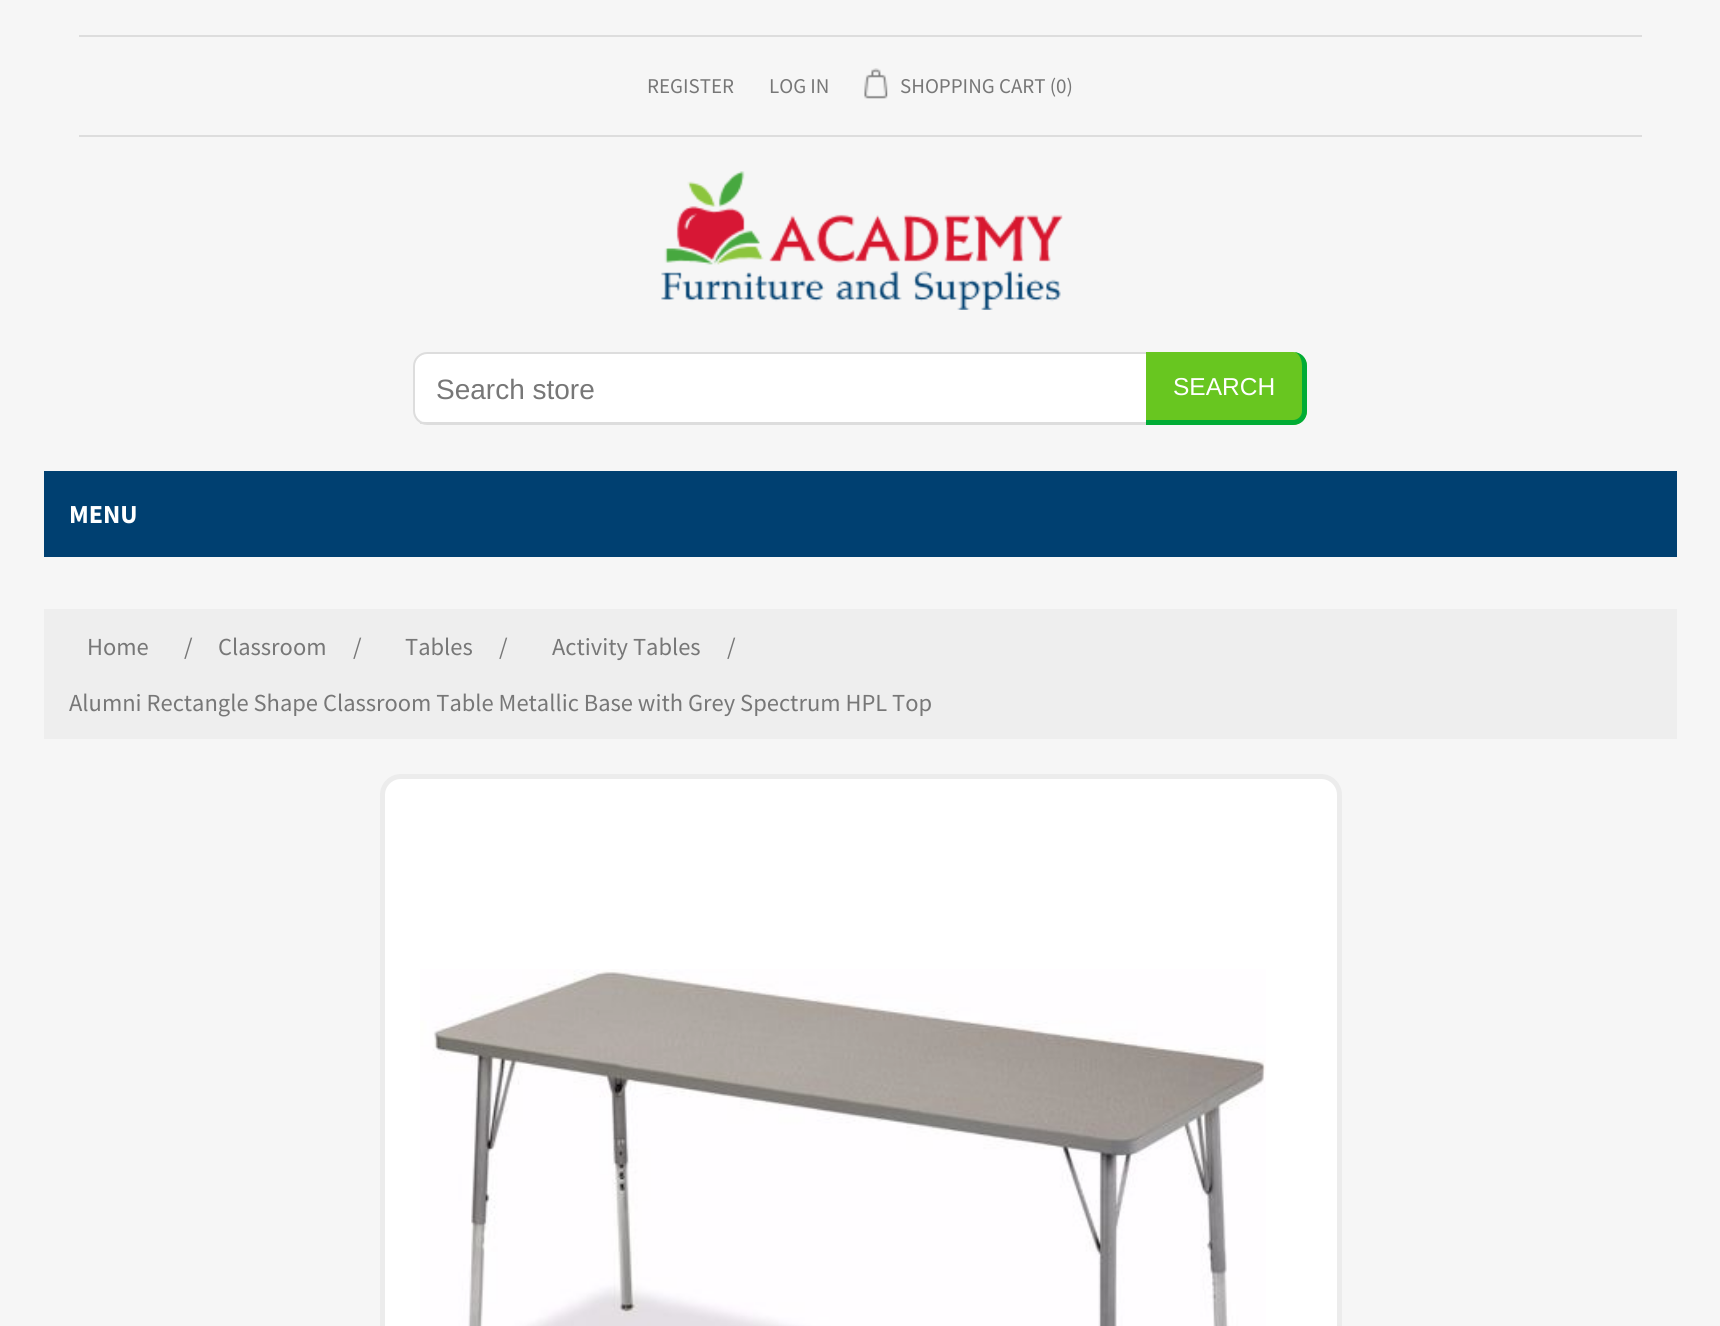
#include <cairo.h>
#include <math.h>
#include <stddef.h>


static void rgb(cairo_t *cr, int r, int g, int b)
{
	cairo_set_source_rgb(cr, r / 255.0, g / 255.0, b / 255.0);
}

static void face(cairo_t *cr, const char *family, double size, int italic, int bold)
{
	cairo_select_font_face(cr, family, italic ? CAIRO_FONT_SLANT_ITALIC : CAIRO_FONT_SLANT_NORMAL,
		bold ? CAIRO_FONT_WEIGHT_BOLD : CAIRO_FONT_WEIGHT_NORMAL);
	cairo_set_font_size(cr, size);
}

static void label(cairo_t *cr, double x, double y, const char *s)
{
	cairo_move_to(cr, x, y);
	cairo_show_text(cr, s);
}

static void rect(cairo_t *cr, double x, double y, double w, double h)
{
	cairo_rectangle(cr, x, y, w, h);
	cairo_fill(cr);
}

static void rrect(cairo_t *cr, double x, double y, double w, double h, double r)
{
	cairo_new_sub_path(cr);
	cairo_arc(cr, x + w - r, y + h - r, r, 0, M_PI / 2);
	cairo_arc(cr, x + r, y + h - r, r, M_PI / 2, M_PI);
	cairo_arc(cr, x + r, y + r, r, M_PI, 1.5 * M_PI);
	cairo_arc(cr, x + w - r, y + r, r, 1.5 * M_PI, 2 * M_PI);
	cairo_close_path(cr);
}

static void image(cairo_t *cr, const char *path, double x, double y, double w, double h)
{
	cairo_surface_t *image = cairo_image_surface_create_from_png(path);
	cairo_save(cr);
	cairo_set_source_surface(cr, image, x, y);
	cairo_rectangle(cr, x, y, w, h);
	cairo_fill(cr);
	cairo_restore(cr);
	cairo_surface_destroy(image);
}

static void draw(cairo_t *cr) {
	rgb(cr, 246, 246, 246);
	cairo_paint(cr);
	rgb(cr, 221, 221, 221);
	rect(cr, 79, 135, 1563, 2);
	rect(cr, 79, 35, 1563, 2);
	face(cr, "Source Sans Pro", 21, 0, 0);
	rgb(cr, 119, 119, 119);
	label(cr, 647, 93, "REGISTER");
	label(cr, 769, 93, "LOG IN");
	image(cr, "image0.png", 864, 68, 24, 31);
	label(cr, 900, 93, "SHOPPING CART (0)");
	image(cr, "image1.png", 661, 171, 402, 139);
	rgb(cr, 255, 255, 255);
	cairo_new_path(cr);
	cairo_move_to(cr, 427, 354);
	cairo_line_to(cr, 1146, 354);
	cairo_line_to(cr, 1146, 422);
	cairo_line_to(cr, 427, 422);
	cairo_curve_to(cr, 420, 422, 415, 417, 415, 411);
	cairo_line_to(cr, 415, 366);
	cairo_curve_to(cr, 415, 359, 420, 354, 427, 354);
	cairo_close_path(cr);
	cairo_fill(cr);
	cairo_new_path(cr);
	cairo_move_to(cr, 427, 353);
	cairo_line_to(cr, 1147, 353);
	cairo_line_to(cr, 1147, 424);
	cairo_line_to(cr, 427, 424);
	cairo_curve_to(cr, 420, 424, 414, 418, 414, 411);
	cairo_line_to(cr, 414, 366);
	cairo_curve_to(cr, 414, 359, 420, 353, 427, 353);
	cairo_close_path(cr);
	rgb(cr, 221, 221, 221);
	cairo_stroke(cr);
	rect(cr, 420, 422, 728, 2);
	face(cr, "Liberation Sans", 28, 0, 0);
	rgb(cr, 119, 119, 119);
	label(cr, 436, 399, "Search store");
	rgb(cr, 104, 198, 32);
	cairo_new_path(cr);
	cairo_move_to(cr, 1146, 352);
	cairo_line_to(cr, 1293, 352);
	cairo_curve_to(cr, 1300.5, 352, 1307, 358.5, 1307, 366);
	cairo_line_to(cr, 1307, 411);
	cairo_curve_to(cr, 1307, 418.5, 1300.5, 425, 1293, 425);
	cairo_line_to(cr, 1146, 425);
	cairo_close_path(cr);
	cairo_fill(cr);
	rgb(cr, 1, 172, 53);
	cairo_set_fill_rule(cr, CAIRO_FILL_RULE_EVEN_ODD);
	cairo_new_path(cr);
	cairo_move_to(cr, 1146, 352);
	cairo_line_to(cr, 1293, 352);
	cairo_curve_to(cr, 1301, 352, 1307, 358, 1307, 366);
	cairo_line_to(cr, 1307, 411);
	cairo_curve_to(cr, 1307, 419, 1301, 425, 1293, 425);
	cairo_line_to(cr, 1146, 425);
	cairo_close_path(cr);
	cairo_move_to(cr, 1146, 352);
	cairo_line_to(cr, 1293, 352);
	cairo_curve_to(cr, 1298, 352, 1302, 358, 1302, 366);
	cairo_line_to(cr, 1302, 411);
	cairo_curve_to(cr, 1302, 416, 1298, 420, 1293, 420);
	cairo_line_to(cr, 1146, 420);
	cairo_close_path(cr);
	cairo_fill(cr);
	face(cr, "Liberation Sans", 24.5, 0, 0);
	rgb(cr, 255, 255, 255);
	label(cr, 1173, 395, "SEARCH");
	rgb(cr, 0, 64, 113);
	rect(cr, 44, 471, 1633, 86);
	face(cr, "Source Sans Pro", 26, 0, 1);
	rgb(cr, 255, 255, 255);
	label(cr, 69, 523, "MENU");
	rgb(cr, 238, 238, 238);
	rect(cr, 44, 609, 1633, 130);
	face(cr, "Source Sans Pro", 24.5, 0, 0);
	rgb(cr, 119, 119, 119);
	label(cr, 87, 655, "Home");
	label(cr, 184, 655, "/");
	label(cr, 218, 655, "Classroom");
	label(cr, 353, 655, "/");
	label(cr, 405, 655, "Tables");
	label(cr, 499, 655, "/");
	label(cr, 552, 655, "Activity Tables");
	label(cr, 727, 655, "/");
	label(cr, 69, 711, "Alumni Rectangle Shape Classroom Table Metallic Base with Grey Spectrum HPL Top");
	rgb(cr, 255, 255, 255);
	rrect(cr, 382.5, 776.5, 957, 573, 18.5);
	cairo_fill_preserve(cr);
	rgb(cr, 236, 236, 236);
	cairo_set_line_width(cr, 5);
	cairo_stroke(cr);
	image(cr, "image2.png", 420, 969, 846, 357);
}

int main(void) {
	cairo_surface_t *surface = cairo_image_surface_create(CAIRO_FORMAT_RGB24, 1720, 1326);
	cairo_t *cr = cairo_create(surface);
	cairo_font_options_t *options = cairo_font_options_create();
	cairo_font_options_set_hint_metrics(options, CAIRO_HINT_METRICS_OFF);
	cairo_font_options_set_hint_style(options, CAIRO_HINT_STYLE_NONE);
	cairo_set_font_options(cr, options);
	cairo_set_miter_limit(cr, 4);
	draw(cr);
	cairo_surface_write_to_png(surface, "render.png");
	cairo_font_options_destroy(options);
	cairo_destroy(cr);
	cairo_surface_destroy(surface);
	return 0;
}
